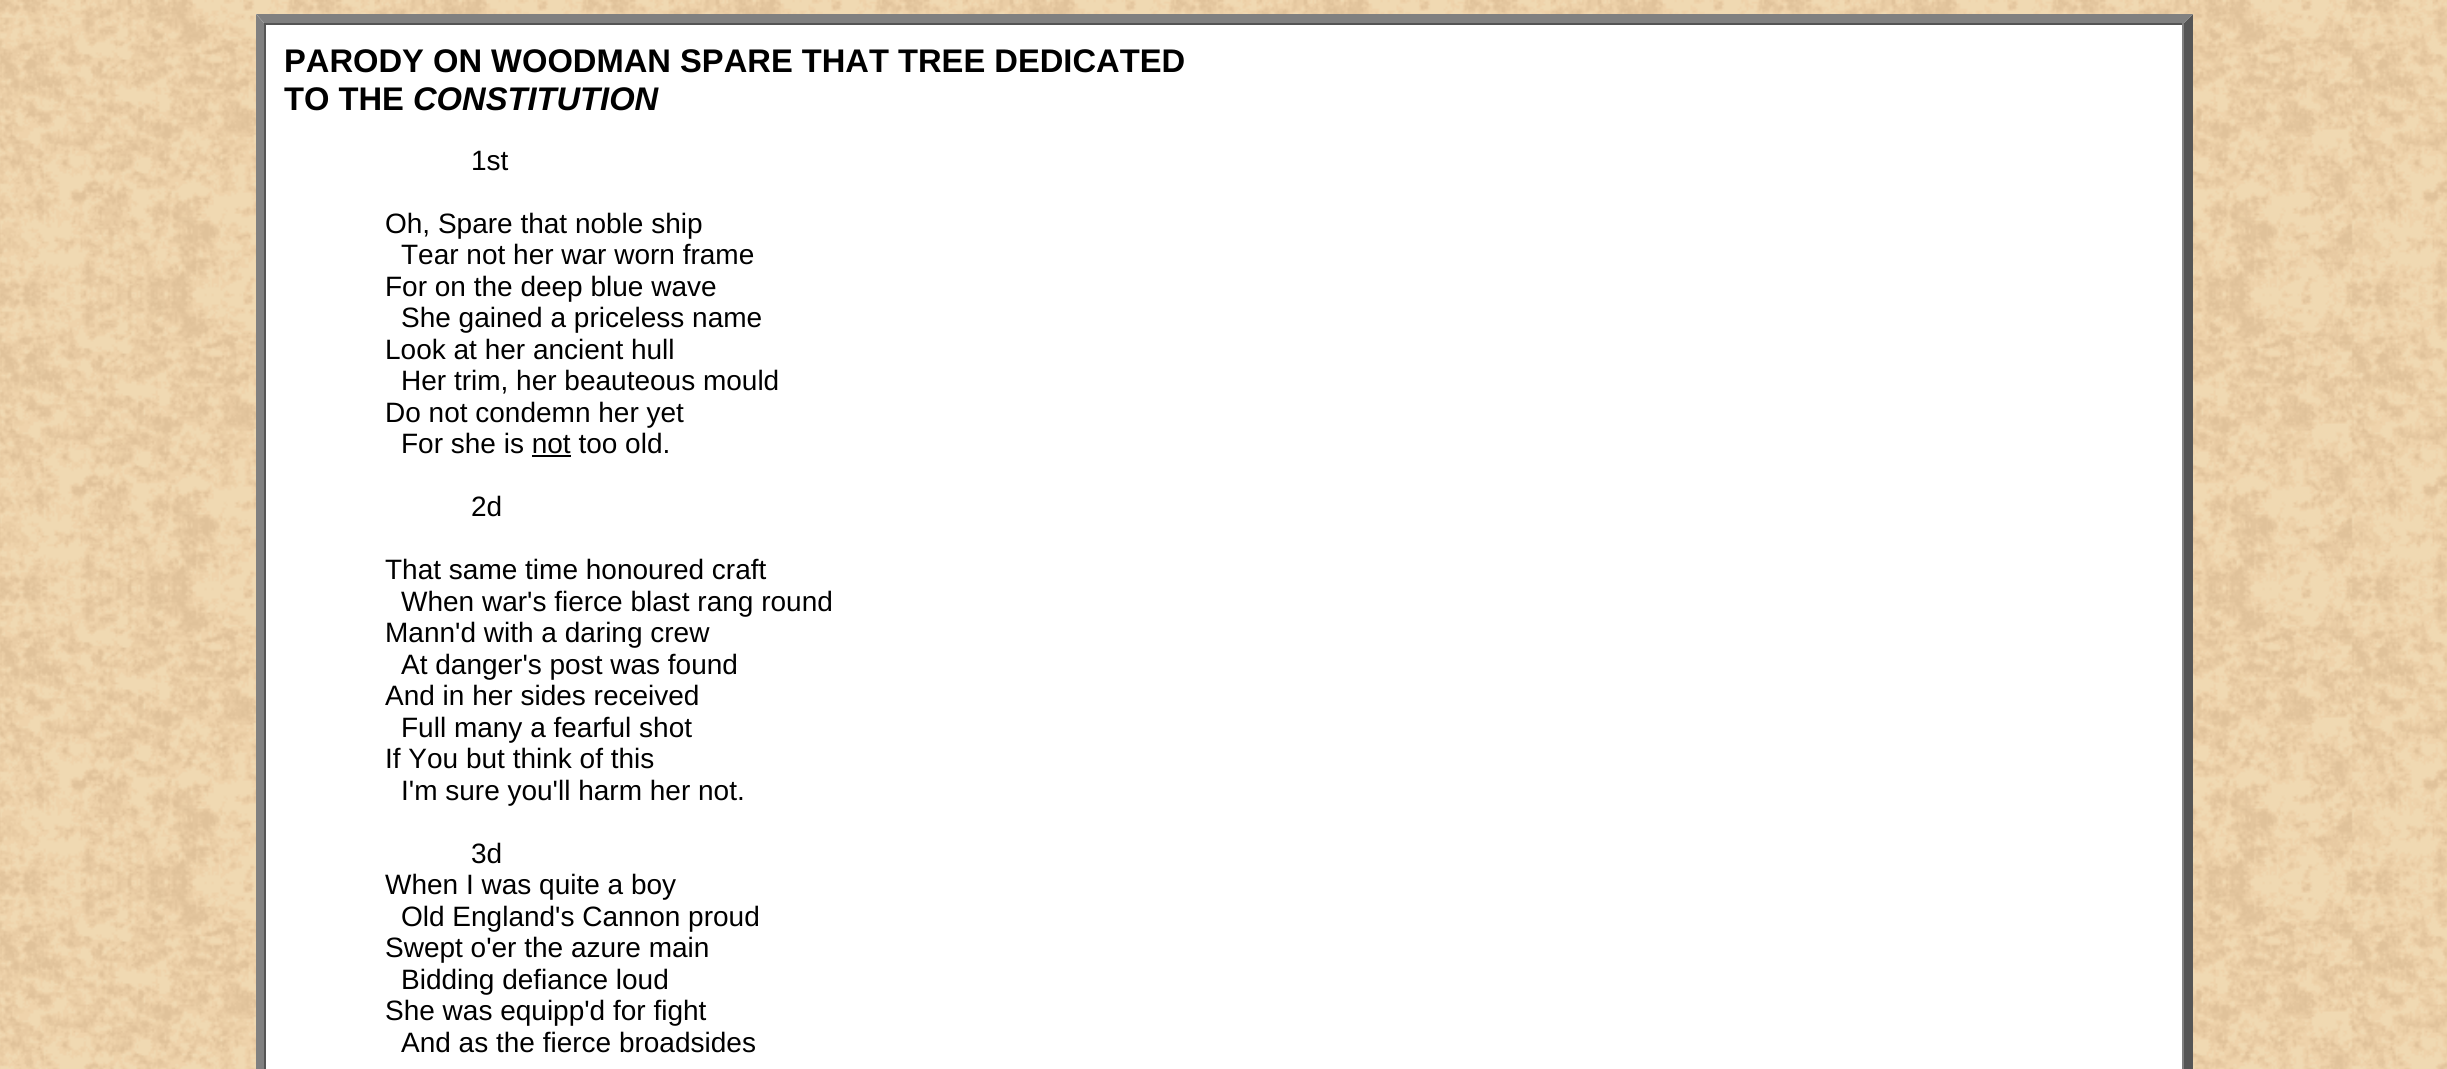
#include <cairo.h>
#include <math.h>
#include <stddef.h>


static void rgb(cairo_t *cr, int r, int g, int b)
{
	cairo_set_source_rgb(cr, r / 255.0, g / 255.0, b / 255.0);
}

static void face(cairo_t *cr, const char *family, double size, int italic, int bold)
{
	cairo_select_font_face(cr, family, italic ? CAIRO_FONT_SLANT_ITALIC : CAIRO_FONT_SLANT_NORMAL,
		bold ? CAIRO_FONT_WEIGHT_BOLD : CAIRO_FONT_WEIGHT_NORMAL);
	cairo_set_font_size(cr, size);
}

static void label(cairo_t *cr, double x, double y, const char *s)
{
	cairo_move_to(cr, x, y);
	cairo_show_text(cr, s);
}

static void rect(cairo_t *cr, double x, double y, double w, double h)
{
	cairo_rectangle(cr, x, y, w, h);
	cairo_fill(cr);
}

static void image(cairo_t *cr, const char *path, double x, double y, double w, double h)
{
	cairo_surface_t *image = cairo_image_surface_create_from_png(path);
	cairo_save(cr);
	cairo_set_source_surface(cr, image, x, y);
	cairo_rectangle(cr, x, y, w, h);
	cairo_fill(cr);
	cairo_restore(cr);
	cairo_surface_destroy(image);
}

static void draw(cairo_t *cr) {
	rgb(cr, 255, 255, 255);
	cairo_paint(cr);
	image(cr, "image0.png", 0, 0, 2447, 1069);
	rgb(cr, 255, 255, 255);
	rect(cr, 256, 14, 1937, 1055);
	rgb(cr, 128, 128, 128);
	cairo_new_path(cr);
	cairo_move_to(cr, 256, 14);
	cairo_line_to(cr, 2193, 14);
	cairo_line_to(cr, 2184, 23);
	cairo_line_to(cr, 264, 23);
	cairo_close_path(cr);
	cairo_fill(cr);
	rgb(cr, 85, 85, 85);
	cairo_new_path(cr);
	cairo_move_to(cr, 2193, 14);
	cairo_line_to(cr, 2193, 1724);
	cairo_line_to(cr, 2184, 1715);
	cairo_line_to(cr, 2184, 23);
	cairo_close_path(cr);
	cairo_fill(cr);
	rgb(cr, 128, 128, 128);
	cairo_new_path(cr);
	cairo_move_to(cr, 256, 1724);
	cairo_line_to(cr, 256, 14);
	cairo_line_to(cr, 264, 23);
	cairo_line_to(cr, 264, 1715);
	cairo_close_path(cr);
	cairo_fill(cr);
	rgb(cr, 85, 85, 85);
	rect(cr, 264, 23, 1920, 2);
	rgb(cr, 128, 128, 128);
	rect(cr, 2182, 23, 2, 1046);
	rgb(cr, 85, 85, 85);
	rect(cr, 264, 23, 2, 1046);
	face(cr, "Liberation Sans", 32.7, 0, 1);
	rgb(cr, 0, 0, 0);
	label(cr, 284, 72, "PARODY ON WOODMAN SPARE THAT TREE DEDICATED");
	label(cr, 284, 110, "TO THE");
	face(cr, "Liberation Sans", 32.7, 1, 1);
	label(cr, 413, 110, "CONSTITUTION");
	face(cr, "Liberation Sans", 28, 0, 0);
	label(cr, 471, 170, "1st");
	label(cr, 385, 233, "Oh, Spare that noble ship");
	label(cr, 401, 264, "Tear not her war worn frame");
	label(cr, 385, 296, "For on the deep blue wave");
	label(cr, 401, 327, "She gained a priceless name");
	label(cr, 385, 359, "Look at her ancient hull");
	label(cr, 401, 390, "Her trim, her beauteous mould");
	label(cr, 385, 422, "Do not condemn her yet");
	label(cr, 401, 453, "For she is not too old.");
	rect(cr, 532, 455, 39, 2);
	label(cr, 471, 516, "2d");
	label(cr, 385, 579, "That same time honoured craft");
	label(cr, 401, 611, "When war's fierce blast rang round");
	label(cr, 385, 642, "Mann'd with a daring crew");
	label(cr, 401, 674, "At danger's post was found");
	label(cr, 385, 705, "And in her sides received");
	label(cr, 401, 737, "Full many a fearful shot");
	label(cr, 385, 768, "If You but think of this");
	label(cr, 401, 800, "I'm sure you'll harm her not.");
	label(cr, 471, 863, "3d");
	label(cr, 385, 894, "When I was quite a boy");
	label(cr, 401, 926, "Old England's Cannon proud");
	label(cr, 385, 957, "Swept o'er the azure main");
	label(cr, 401, 989, "Bidding defiance loud");
	label(cr, 385, 1020, "She was equipp'd for fight");
	label(cr, 401, 1052, "And as the fierce broadsides");
}

int main(void) {
	cairo_surface_t *surface = cairo_image_surface_create(CAIRO_FORMAT_RGB24, 2447, 1069);
	cairo_t *cr = cairo_create(surface);
	cairo_font_options_t *options = cairo_font_options_create();
	cairo_font_options_set_hint_metrics(options, CAIRO_HINT_METRICS_OFF);
	cairo_font_options_set_hint_style(options, CAIRO_HINT_STYLE_NONE);
	cairo_set_font_options(cr, options);
	cairo_set_miter_limit(cr, 4);
	draw(cr);
	cairo_surface_write_to_png(surface, "render.png");
	cairo_font_options_destroy(options);
	cairo_destroy(cr);
	cairo_surface_destroy(surface);
	return 0;
}
